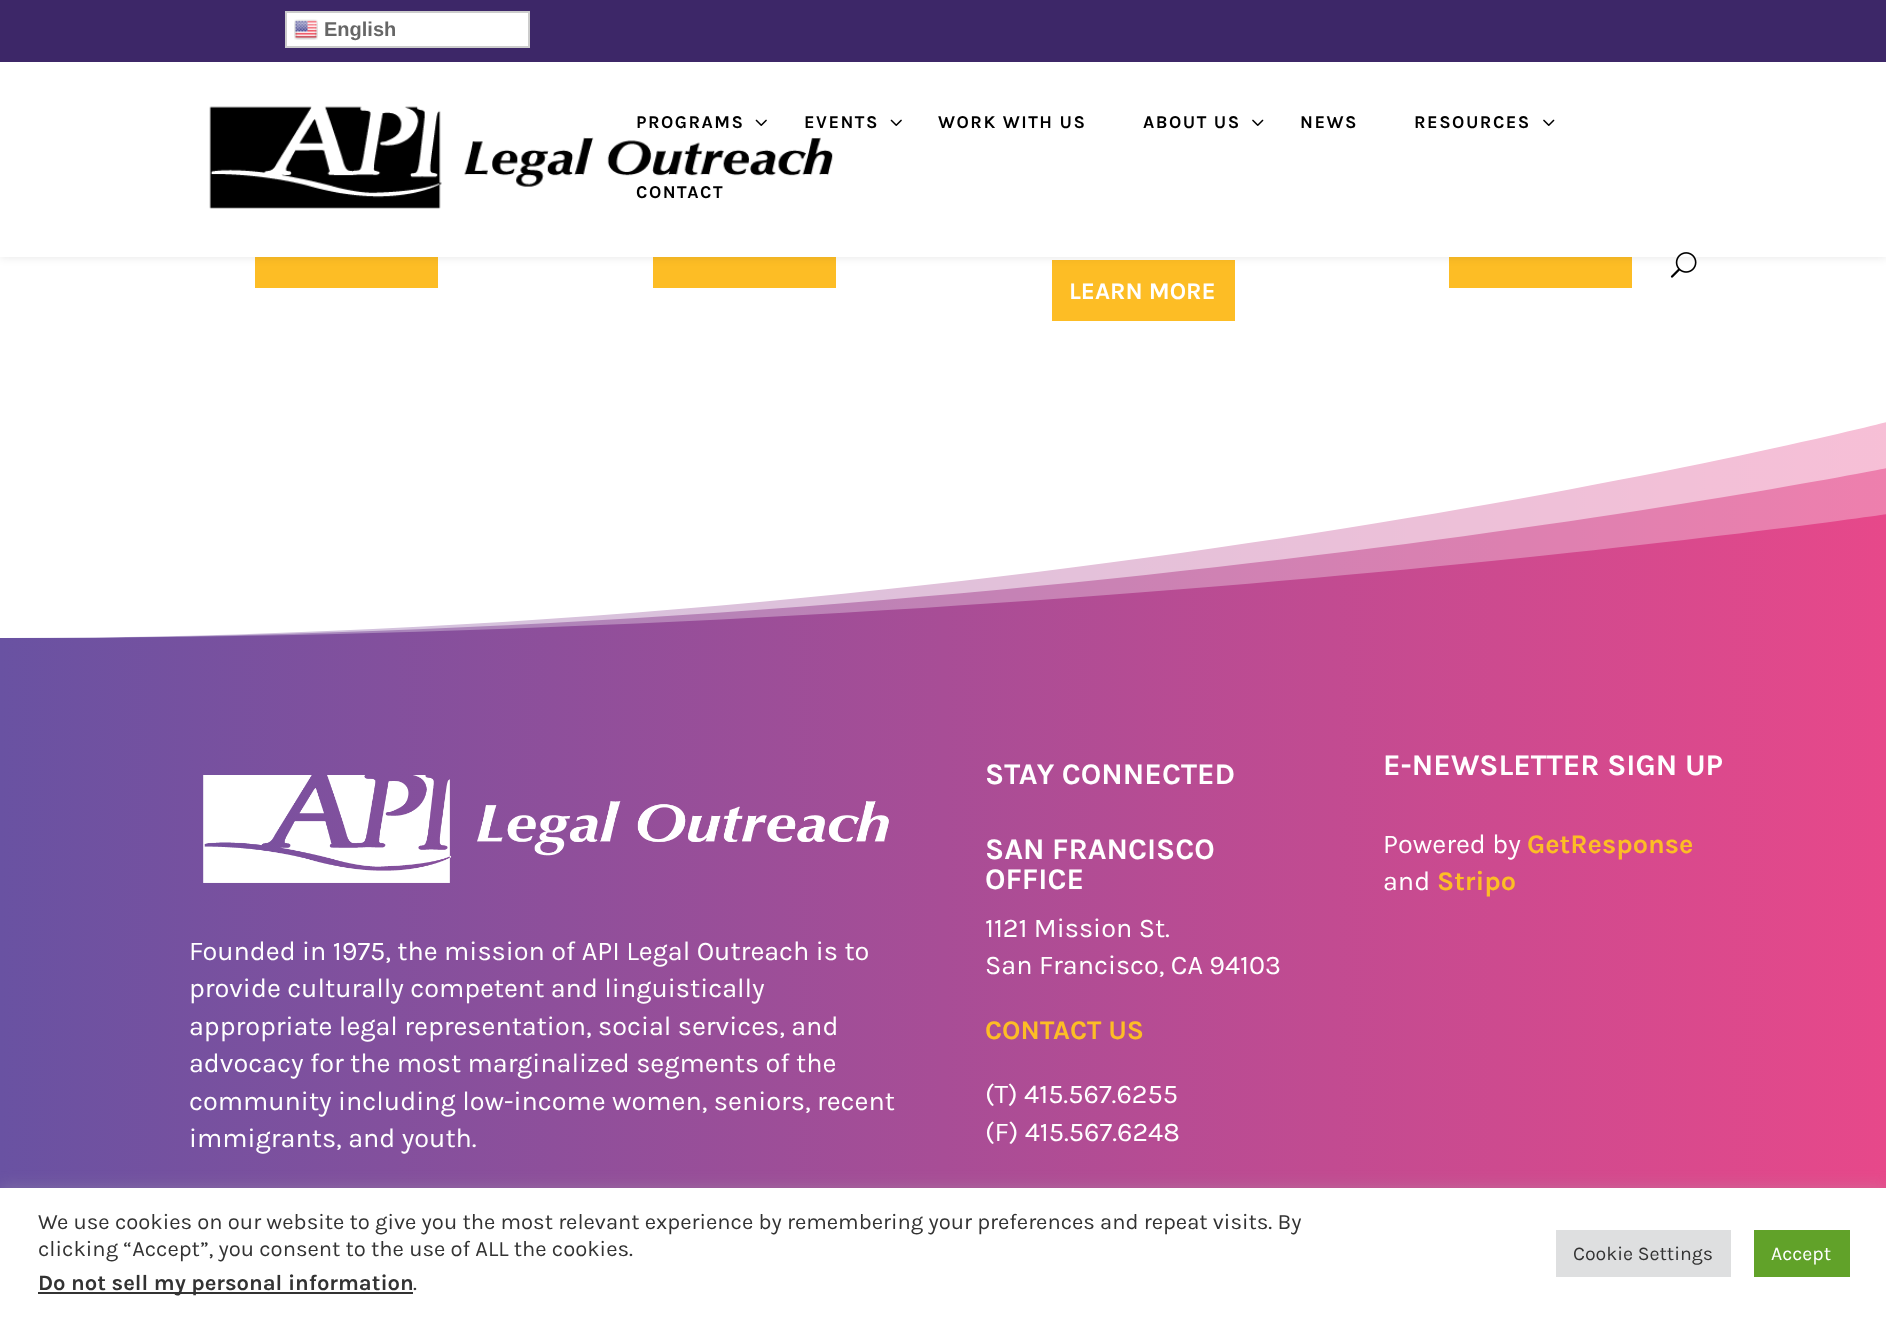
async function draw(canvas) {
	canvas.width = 1886;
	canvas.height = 1318;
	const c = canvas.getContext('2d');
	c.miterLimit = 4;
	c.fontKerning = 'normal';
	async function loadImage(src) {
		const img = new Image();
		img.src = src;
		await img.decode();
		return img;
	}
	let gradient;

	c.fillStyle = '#fff';
	c.fillRect(0, 0, 1886, 1318);
	for (const [x, y, w, h, color] of [
		[255, 257, 183, 31, '#fdbd25'],
		[653, 257, 183, 31, '#fdbd25'],
		[1449, 257, 183, 31, '#fdbd25'],
		[1052, 260, 183, 61, '#fdbd25'],
	]) {
		c.fillStyle = color;
		c.fillRect(x, y, w, h);
	}
	c.fillStyle = '#0000001a';
	c.filter = 'blur(5px)';
	c.beginPath();
	c.rect(0, 62, 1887, 195);
	c.fill();
	c.filter = 'none';
	c.fillStyle = '#3d2768';
	c.fillRect(0, 0, 1886, 62);
	c.fillStyle = '#fff';
	c.beginPath();
	c.rect(286, 12, 243, 35);
	c.fill();
	c.strokeStyle = '#ccc';
	c.lineWidth = 2;
	c.stroke();
	c.drawImage(await loadImage('img1.png'), 294, 19, 24, 21);
	c.font = 'bold 20px Liberation Sans';
	c.fillStyle = '#666';
	c.fillText('English', 324, 36);
	c.fillStyle = '#fff';
	c.fillRect(0, 62, 1886, 195);
	c.drawImage(await loadImage('img2.png'), 209, 106, 624, 103);
	c.letterSpacing = '1.5px';
	c.font = 'bold 18px Karla';
	c.fillStyle = '#000';
	c.fillText('PROGRAMS', 636, 128);
	c.drawImage(await loadImage('img3.png'), 755, 119, 12, 7);
	c.fillText('EVENTS', 804, 128);
	c.drawImage(await loadImage('img3.png'), 890, 119, 12, 7);
	c.fillText('WORK WITH US', 938, 128);
	c.fillText('ABOUT US', 1143, 128);
	c.drawImage(await loadImage('img4.png'), 1252, 119, 12, 7);
	c.fillText('NEWS', 1300, 128);
	c.fillText('RESOURCES', 1414, 128);
	c.drawImage(await loadImage('img4.png'), 1543, 119, 12, 7);
	c.fillText('CONTACT', 636, 198);
	c.drawImage(await loadImage('img5.png'), 1670, 252, 27, 26);
	c.letterSpacing = '0px';
	c.font = 'bold 24px Karla';
	c.fillStyle = '#fff';
	c.fillText('LEARN MORE', 1069, 299);
	gradient = c.createLinearGradient(0, 1046, 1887, 1046);
	gradient.addColorStop(0, '#6952a2');
	gradient.addColorStop(1, '#e7488a');
	c.fillStyle = gradient;
	c.fillRect(0, 422, 1886, 766);
	c.fillStyle = '#ffffff4d';
	c.beginPath();
	c.moveTo(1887, 422);
	c.lineTo(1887, 514);
	c.bezierCurveTo(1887, 514, 1042, 638, 0, 638);
	c.lineTo(0, 422);
	c.closePath();
	c.fill();
	c.fillStyle = '#ffffff80';
	c.beginPath();
	c.moveTo(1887, 422);
	c.lineTo(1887, 468);
	c.bezierCurveTo(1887, 468, 1042, 638, 0, 638);
	c.lineTo(0, 422);
	c.closePath();
	c.fill();
	c.fillStyle = '#fff';
	c.beginPath();
	c.moveTo(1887, 422);
	c.bezierCurveTo(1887, 422, 1042, 638, 0, 638);
	c.lineTo(0, 422);
	c.closePath();
	c.fill();
	c.drawImage(await loadImage('img6.png'), 203, 775, 686, 108);
	c.font = '27px Karla';
	for (const [text, x, y] of [
		['Founded in 1975, the mission of API Legal Outreach is to', 189, 960],
		['provide culturally competent and linguistically', 189, 997],
		['appropriate legal representation, social services, and', 189, 1035],
		['advocacy for the most marginalized segments of the', 189, 1072],
		['community including low-income women, seniors, recent', 189, 1110],
		['immigrants, and youth.', 189, 1147],
	]) {
		c.fillText(text, x, y);
	}
	c.font = 'bold 30px Karla';
	for (const [text, x, y] of [
		['STAY CONNECTED', 985, 784],
		['SAN FRANCISCO', 985, 859],
		['OFFICE', 985, 889],
	]) {
		c.fillText(text, x, y);
	}
	c.font = '27px Karla';
	c.fillText('1121 Mission St.', 985, 937);
	c.fillText('San Francisco, CA 94103', 985, 974);
	c.font = 'bold 27px Karla';
	c.fillStyle = '#fdbd25';
	c.fillText('CONTACT US', 985, 1039);
	c.font = '27px Karla';
	c.fillStyle = '#fff';
	c.fillText('(T) 415.567.6255', 985, 1103);
	c.fillText('(F) 415.567.6248', 985, 1141);
	c.font = 'bold 30px Karla';
	c.fillText('E-NEWSLETTER SIGN UP', 1383, 775);
	c.font = '27px Karla';
	c.fillText('Powered by', 1383, 853);
	c.font = 'bold 27px Karla';
	c.fillStyle = '#fdbd25';
	c.fillText('GetResponse', 1527, 853);
	c.font = '27px Karla';
	c.fillStyle = '#fff';
	c.fillText('and', 1383, 890);
	c.font = 'bold 27px Karla';
	c.fillStyle = '#fdbd25';
	c.fillText('Stripo', 1437, 890);
	c.fillStyle = '#acabab4d';
	c.filter = 'blur(7.5px)';
	c.beginPath();
	c.rect(0, 1187, 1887, 130);
	c.fill();
	c.filter = 'none';
	c.fillStyle = '#fff';
	c.fillRect(0, 1188, 1886, 130);
	c.font = '22px Karla';
	c.fillStyle = '#333';
	c.fillText('We use cookies on our website to give you the most relevant experience by remembering your preferences and repeat visits. By', 38, 1229);
	c.fillText('clicking “Accept”, you consent to the use of ALL the cookies.', 38, 1256);
	c.fillRect(38, 1292, 375, 2);
	c.font = 'bold 22px Karla';
	c.fillText('Do not sell my personal information', 38, 1290);
	c.font = '22px Karla';
	c.fillText('.', 413, 1290);
	c.fillStyle = '#dedfe0';
	c.fillRect(1556, 1230, 175, 47);
	c.font = '19.5px Karla';
	c.fillStyle = '#333';
	c.fillText('Cookie Settings', 1573, 1260);
	c.fillStyle = '#61a229';
	c.fillRect(1754, 1230, 96, 47);
	c.fillStyle = '#fff';
	c.fillText('Accept', 1771, 1260);
}

draw(document.querySelector('canvas'));
